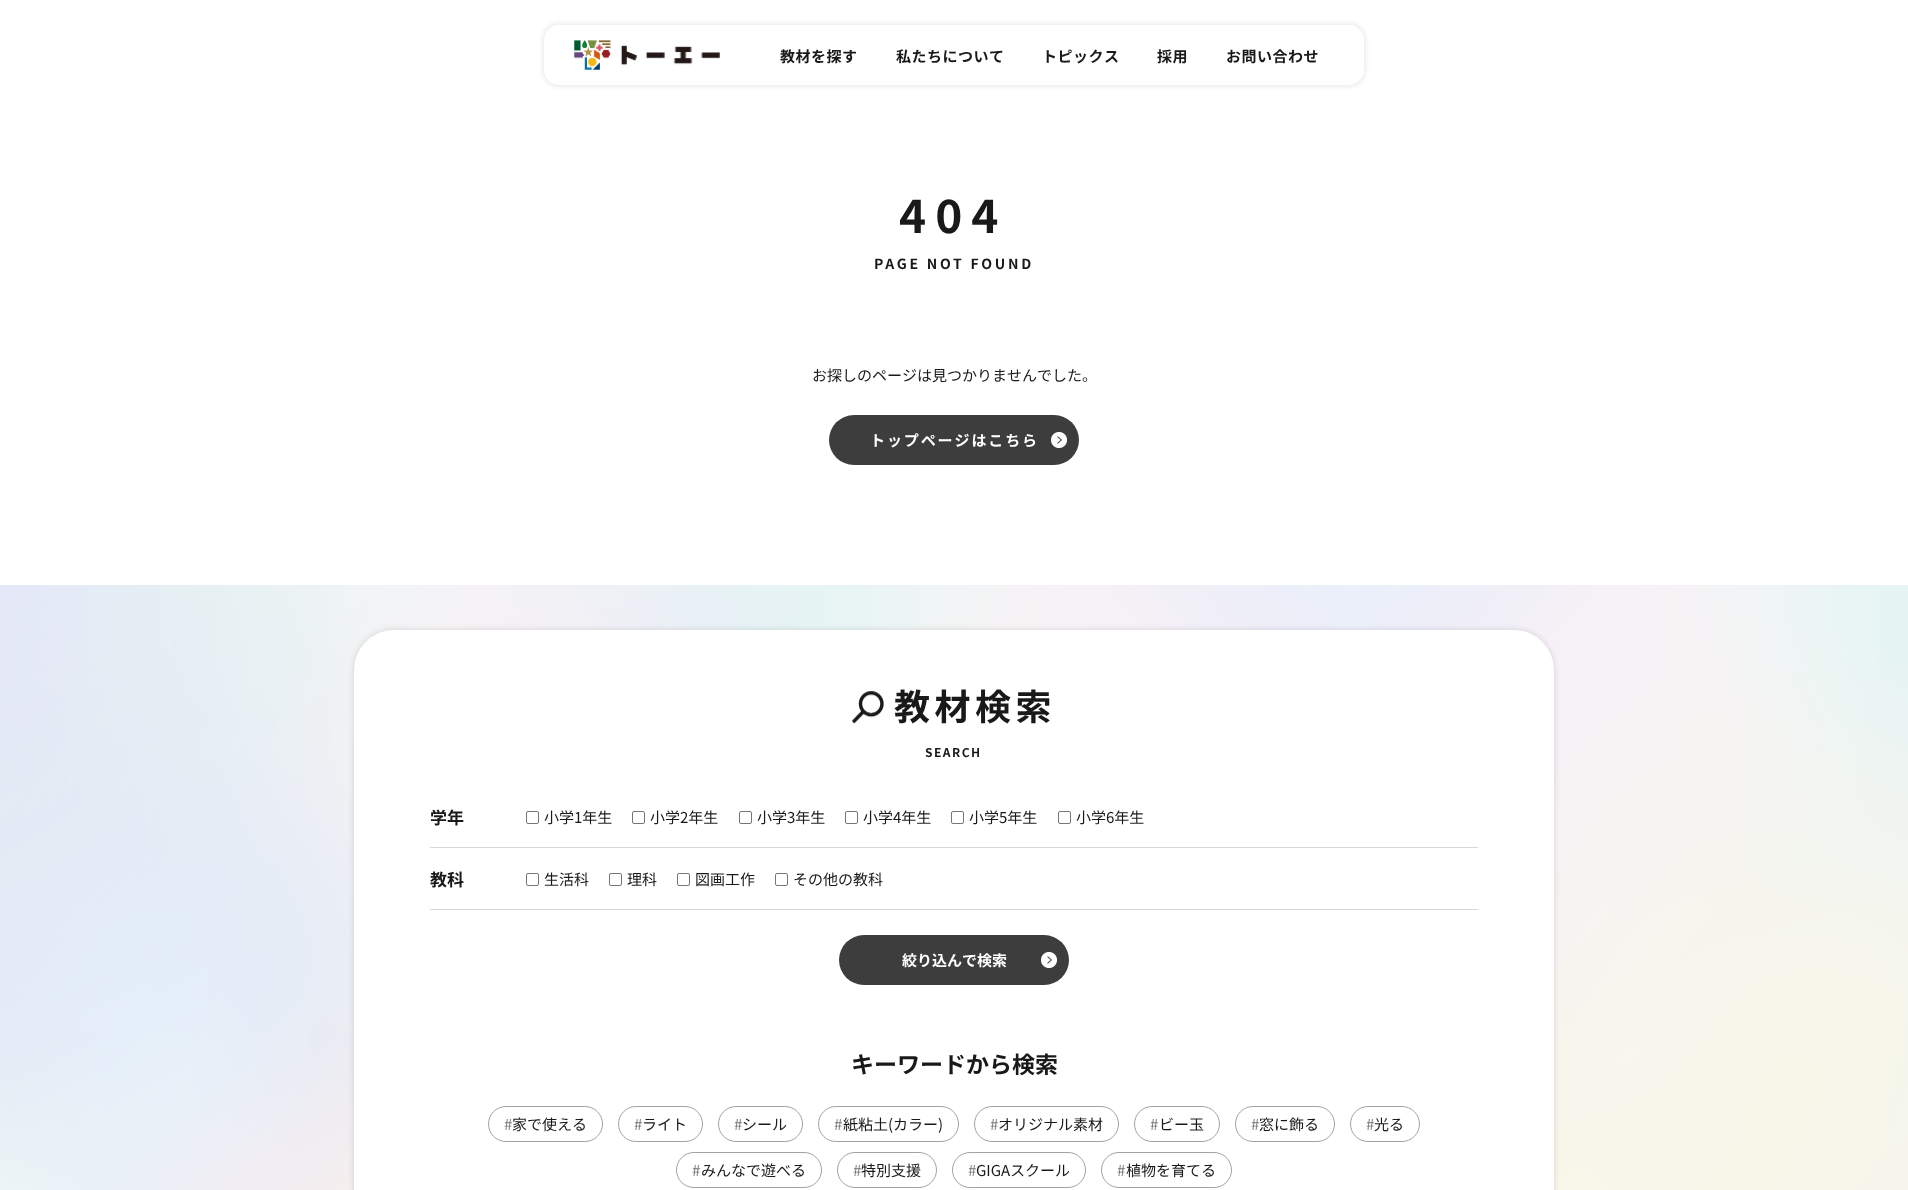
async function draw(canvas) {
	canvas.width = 1908;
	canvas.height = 1190;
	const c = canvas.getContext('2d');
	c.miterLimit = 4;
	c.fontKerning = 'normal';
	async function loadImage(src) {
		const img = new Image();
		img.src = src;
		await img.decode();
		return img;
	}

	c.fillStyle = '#fff';
	c.fillRect(0, 0, 1908, 1190);
	c.fillStyle = '#23181514';
	c.filter = 'blur(2px)';
	c.beginPath();
	c.roundRect(542, 23, 824, 64, 17);
	c.fill();
	c.filter = 'none';
	c.fillStyle = '#fff';
	c.beginPath();
	c.roundRect(544, 25, 820, 60, 15);
	c.fill();
	c.drawImage(await loadImage('img1.png'), 574, 40, 146, 30);
	c.letterSpacing = '0.5px';
	c.font = 'bold 15px Noto Sans JP';
	c.fillStyle = '#191919';
	for (const [text, x, y] of [
		['教材を探す', 780, 62],
		['私たちについて', 896, 62],
		['トピックス', 1042, 62],
		['採用', 1157, 62],
		['お問い合わせ', 1226, 62],
	]) {
		c.fillText(text, x, y);
	}
	c.letterSpacing = '9px';
	c.font = 'bold 46px Noto Sans JP';
	c.fillText('404', 899, 233);
	c.letterSpacing = '2.75px';
	c.font = 'bold 14px Noto Sans JP';
	c.fillText('PAGE NOT FOUND', 874, 269);
	c.letterSpacing = '0px';
	c.font = '15px Noto Sans JP';
	c.fillText('お探しのページは見つかりませんでした。', 812, 381);
	c.fillStyle = '#3d3d3d';
	c.beginPath();
	c.roundRect(829, 415, 250, 50, 25);
	c.fill();
	c.letterSpacing = '1.9px';
	c.font = 'bold 15px Noto Sans JP';
	c.fillStyle = '#fff';
	c.fillText('トップページはこちら', 870, 446);
	c.drawImage(await loadImage('img2.png'), 1051, 432, 16, 16);
	c.drawImage(await loadImage('img3.png'), 0, 585, 1908, 605);
	c.fillStyle = '#23181514';
	c.filter = 'blur(2px)';
	c.beginPath();
	c.roundRect(352, 628, 1204, 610, 42);
	c.fill();
	c.filter = 'none';
	c.fillStyle = '#fff';
	c.beginPath();
	c.roundRect(354, 630, 1200, 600, 40);
	c.fill();
	c.drawImage(await loadImage('img4.png'), 852, 691, 32, 33);
	c.letterSpacing = '4.5px';
	c.font = 'bold 36px Noto Sans JP';
	c.fillStyle = '#191919';
	c.fillText('教材検索', 894, 720);
	c.letterSpacing = '1.5px';
	c.font = 'bold 12px Noto Sans JP';
	c.fillText('SEARCH', 925, 757);
	c.fillStyle = '#d7d7d7';
	c.fillRect(430, 847, 1048, 1);
	c.letterSpacing = '0px';
	c.font = 'bold 17px Noto Sans JP';
	c.fillStyle = '#191919';
	c.fillText('学年', 430, 824);
	c.beginPath();
	c.roundRect(526.5, 811.5, 12, 12, 1.5);
	c.strokeStyle = '#767676';
	c.stroke();
	c.font = '15px Noto Sans JP';
	c.fillText('小学1年生', 544, 823);
	c.beginPath();
	c.roundRect(632.5, 811.5, 12, 12, 1.5);
	c.stroke();
	c.fillText('小学2年生', 650, 823);
	c.beginPath();
	c.roundRect(739.5, 811.5, 12, 12, 1.5);
	c.stroke();
	c.fillText('小学3年生', 757, 823);
	c.beginPath();
	c.roundRect(845.5, 811.5, 12, 12, 1.5);
	c.stroke();
	c.fillText('小学4年生', 863, 823);
	c.beginPath();
	c.roundRect(951.5, 811.5, 12, 12, 1.5);
	c.stroke();
	c.fillText('小学5年生', 969, 823);
	c.beginPath();
	c.roundRect(1058.5, 811.5, 12, 12, 1.5);
	c.stroke();
	c.fillText('小学6年生', 1076, 823);
	c.fillStyle = '#d7d7d7';
	c.fillRect(430, 909, 1048, 1);
	c.font = 'bold 17px Noto Sans JP';
	c.fillStyle = '#191919';
	c.fillText('教科', 430, 886);
	c.beginPath();
	c.roundRect(526.5, 873.5, 12, 12, 1.5);
	c.stroke();
	c.font = '15px Noto Sans JP';
	c.fillText('生活科', 544, 885);
	c.beginPath();
	c.roundRect(609.5, 873.5, 12, 12, 1.5);
	c.stroke();
	c.fillText('理科', 627, 885);
	c.beginPath();
	c.roundRect(677.5, 873.5, 12, 12, 1.5);
	c.stroke();
	c.fillText('図画工作', 695, 885);
	c.beginPath();
	c.roundRect(775.5, 873.5, 12, 12, 1.5);
	c.stroke();
	c.fillText('その他の教科', 793, 885);
	c.fillStyle = '#3d3d3d';
	c.beginPath();
	c.roundRect(839, 935, 230, 50, 25);
	c.fill();
	c.font = 'bold 15px Noto Sans JP';
	c.fillStyle = '#fff';
	c.fillText('絞り込んで検索', 902, 966);
	c.drawImage(await loadImage('img2.png'), 1041, 952, 16, 16);
	c.font = 'bold 23px Noto Sans JP';
	c.fillStyle = '#191919';
	c.fillText('キーワードから検索', 851, 1073);
	c.beginPath();
	c.roundRect(488.5, 1106.5, 114, 35, 17.5);
	c.strokeStyle = '#a3a2a2';
	c.stroke();
	c.font = '15px Noto Sans JP';
	c.fillStyle = '#757575';
	c.fillText('#', 504, 1130);
	c.fillStyle = '#191919';
	c.fillText('家で使える', 512, 1130);
	c.beginPath();
	c.roundRect(618.5, 1106.5, 84, 35, 17.5);
	c.stroke();
	c.fillStyle = '#757575';
	c.fillText('#', 634, 1130);
	c.fillStyle = '#191919';
	c.fillText('ライト', 642, 1130);
	c.beginPath();
	c.roundRect(718.5, 1106.5, 84, 35, 17.5);
	c.stroke();
	c.fillStyle = '#757575';
	c.fillText('#', 734, 1130);
	c.fillStyle = '#191919';
	c.fillText('シール', 742, 1130);
	c.beginPath();
	c.roundRect(818.5, 1106.5, 140, 35, 17.5);
	c.stroke();
	c.fillStyle = '#757575';
	c.fillText('#', 834, 1130);
	c.fillStyle = '#191919';
	c.fillText('紙粘土(カラー)', 843, 1130);
	c.beginPath();
	c.roundRect(974.5, 1106.5, 144, 35, 17.5);
	c.stroke();
	c.fillStyle = '#757575';
	c.fillText('#', 990, 1130);
	c.fillStyle = '#191919';
	c.fillText('オリジナル素材', 998, 1130);
	c.beginPath();
	c.roundRect(1134.5, 1106.5, 85, 35, 17.5);
	c.stroke();
	c.fillStyle = '#757575';
	c.fillText('#', 1150, 1130);
	c.fillStyle = '#191919';
	c.fillText('ビー玉', 1159, 1130);
	c.beginPath();
	c.roundRect(1235.5, 1106.5, 99, 35, 17.5);
	c.stroke();
	c.fillStyle = '#757575';
	c.fillText('#', 1251, 1130);
	c.fillStyle = '#191919';
	c.fillText('窓に飾る', 1259, 1130);
	c.beginPath();
	c.roundRect(1350.5, 1106.5, 69, 35, 17.5);
	c.stroke();
	c.fillStyle = '#757575';
	c.fillText('#', 1366, 1130);
	c.fillStyle = '#191919';
	c.fillText('光る', 1374, 1130);
	c.beginPath();
	c.roundRect(676.5, 1152.5, 145, 35, 17.5);
	c.stroke();
	c.fillStyle = '#757575';
	c.fillText('#', 692, 1176);
	c.fillStyle = '#191919';
	c.fillText('みんなで遊べる', 701, 1176);
	c.beginPath();
	c.roundRect(837.5, 1152.5, 99, 35, 17.5);
	c.stroke();
	c.fillStyle = '#757575';
	c.fillText('#', 853, 1176);
	c.fillStyle = '#191919';
	c.fillText('特別支援', 861, 1176);
	c.beginPath();
	c.roundRect(952.5, 1152.5, 133, 35, 17.5);
	c.stroke();
	c.fillStyle = '#757575';
	c.fillText('#', 968, 1176);
	c.fillStyle = '#191919';
	c.fillText('GIGAスクール', 976, 1176);
	c.beginPath();
	c.roundRect(1101.5, 1152.5, 130, 35, 17.5);
	c.stroke();
	c.fillStyle = '#757575';
	c.fillText('#', 1117, 1176);
	c.fillStyle = '#191919';
	c.fillText('植物を育てる', 1126, 1176);
}

draw(document.querySelector('canvas'));
